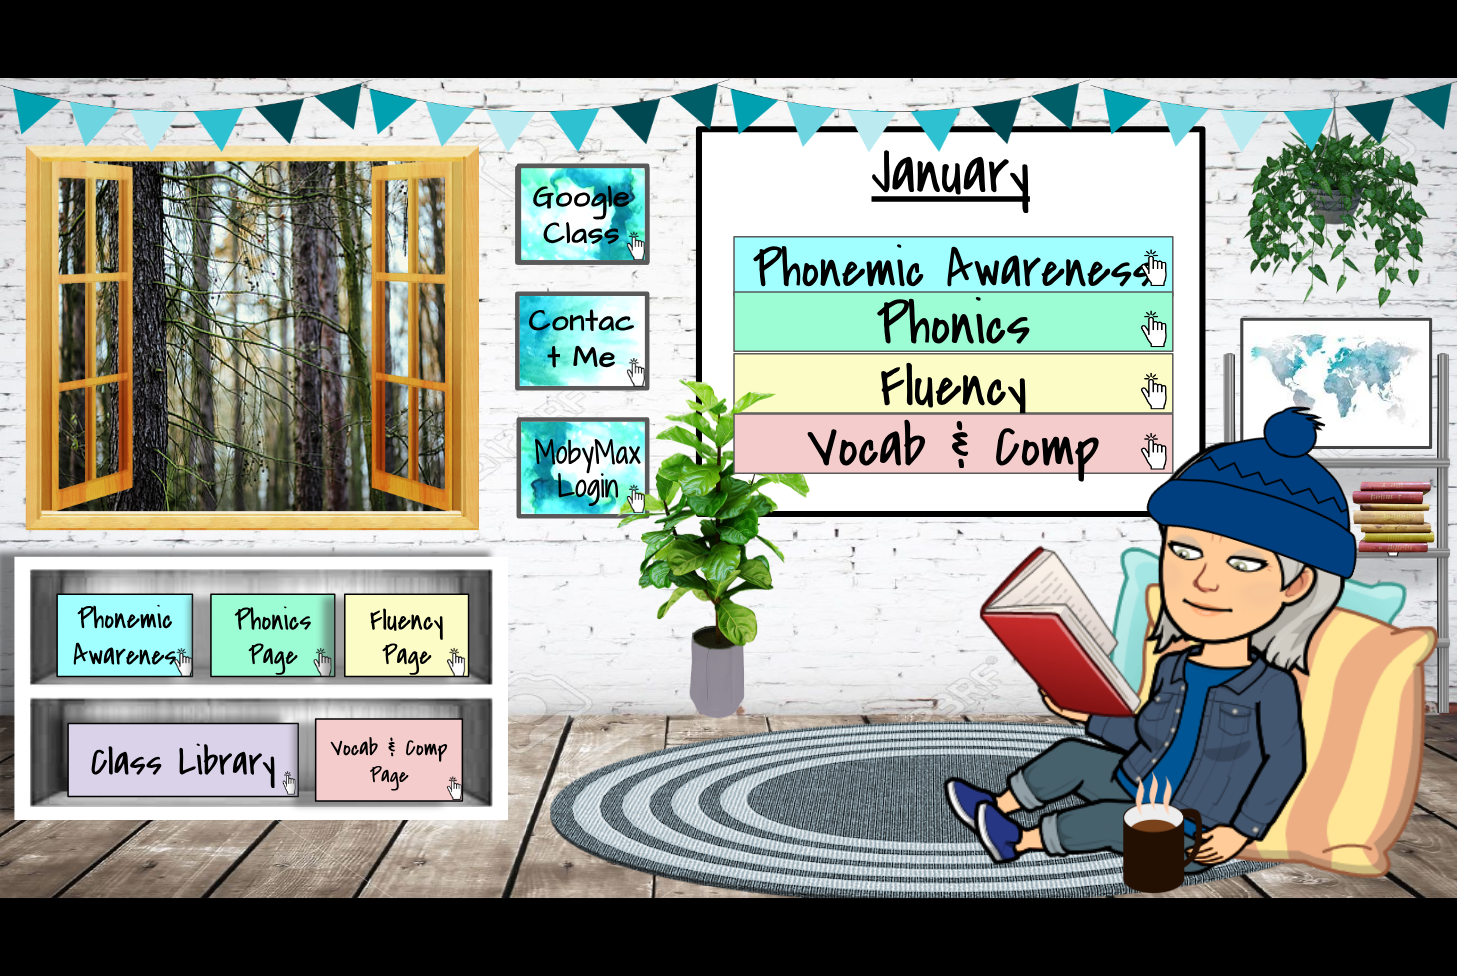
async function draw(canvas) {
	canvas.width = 1457;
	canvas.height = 976;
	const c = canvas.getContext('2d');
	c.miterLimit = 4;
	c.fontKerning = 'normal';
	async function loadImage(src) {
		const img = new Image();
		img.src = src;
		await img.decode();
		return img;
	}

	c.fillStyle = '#000';
	c.fillRect(0, 0, 1457, 976);
	c.drawImage(await loadImage('img1.png'), 0, 78, 1457, 821);
}

draw(document.querySelector('canvas'));
